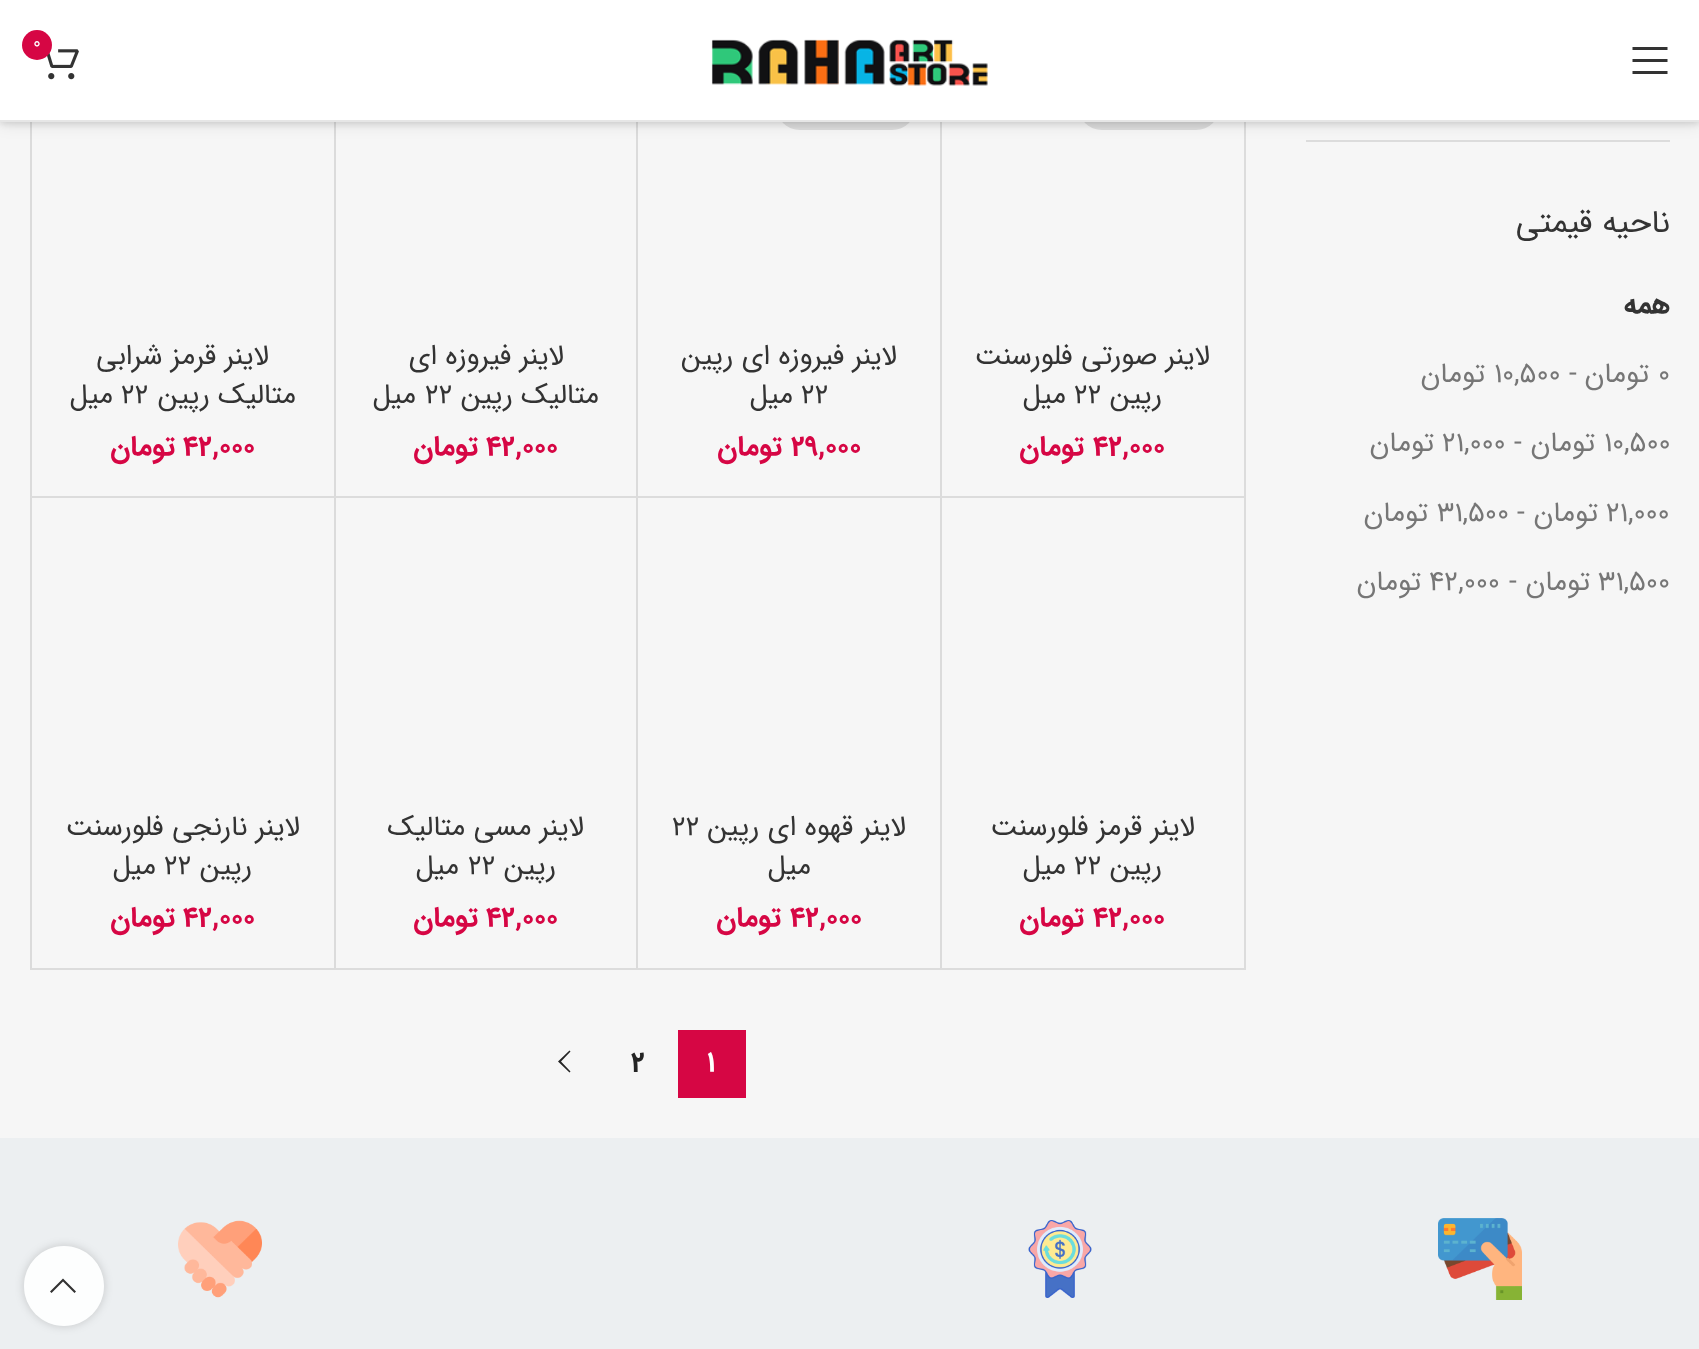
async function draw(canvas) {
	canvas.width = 1699;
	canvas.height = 1349;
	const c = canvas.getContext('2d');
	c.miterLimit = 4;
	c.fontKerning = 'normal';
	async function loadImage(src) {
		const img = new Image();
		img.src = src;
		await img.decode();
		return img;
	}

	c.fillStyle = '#f6f6f6';
	c.fillRect(0, 0, 1699, 1349);
	c.fillStyle = '#dcdcdc';
	c.fillRect(1244, 122, 2, 848);
	c.beginPath();
	c.moveTo(1244, 498);
	c.lineTo(940, 498);
	c.lineTo(942, 496);
	c.lineTo(1244, 496);
	c.closePath();
	c.fill();
	c.fillStyle = '#0000001c';
	c.beginPath();
	c.moveTo(940, 498);
	c.lineTo(940, 28);
	c.lineTo(942, 28);
	c.lineTo(942, 496);
	c.closePath();
	c.fill();
	c.fillStyle = '#ddd';
	c.beginPath();
	c.roundRect(1078, 52, 142, 78, 24);
	c.fill();
	c.fillStyle = '#dcdcdc';
	c.beginPath();
	c.moveTo(940, 498);
	c.lineTo(636, 498);
	c.lineTo(638, 496);
	c.lineTo(940, 496);
	c.closePath();
	c.fill();
	c.fillStyle = '#0000001c';
	c.beginPath();
	c.moveTo(636, 498);
	c.lineTo(636, 28);
	c.lineTo(638, 28);
	c.lineTo(638, 496);
	c.closePath();
	c.fill();
	c.fillStyle = '#ddd';
	c.beginPath();
	c.roundRect(776, 52, 140, 78, 24);
	c.fill();
	c.fillStyle = '#dcdcdc';
	c.beginPath();
	c.moveTo(636, 498);
	c.lineTo(334, 498);
	c.lineTo(336, 496);
	c.lineTo(636, 496);
	c.closePath();
	c.fill();
	c.fillStyle = '#0000001c';
	c.beginPath();
	c.moveTo(334, 498);
	c.lineTo(334, 28);
	c.lineTo(336, 28);
	c.lineTo(336, 496);
	c.closePath();
	c.fill();
	c.fillStyle = '#dcdcdc';
	c.beginPath();
	c.moveTo(334, 498);
	c.lineTo(30, 498);
	c.lineTo(32, 496);
	c.lineTo(334, 496);
	c.closePath();
	c.fill();
	c.fillStyle = '#0000001c';
	c.beginPath();
	c.moveTo(30, 498);
	c.lineTo(30, 28);
	c.lineTo(32, 28);
	c.lineTo(32, 496);
	c.closePath();
	c.fill();
	c.fillStyle = '#0000001a';
	c.filter = 'blur(3px)';
	c.beginPath();
	c.rect(0, 2, 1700, 122);
	c.fill();
	c.filter = 'none';
	c.fillStyle = '#dcdcdc';
	c.fillRect(1306, 140, 364, 2);
	c.fillStyle = '#0000001a';
	c.filter = 'blur(8px)';
	c.beginPath();
	c.rect(0, 2, 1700, 122);
	c.fill();
	c.filter = 'none';
	c.fillStyle = '#fff';
	c.fillRect(0, 0, 1699, 120);
	c.fillStyle = '#e6e6e6';
	c.fillRect(0, 120, 1699, 2);
	c.drawImage(await loadImage('img1.png'), 711, 39, 277, 47);
	c.drawImage(await loadImage('img2.png'), 47, 49, 32, 31);
	c.fillStyle = '#d60644';
	c.beginPath();
	c.arc(37, 45, 15, 0, 2 * Math.PI);
	c.fill();
	c.font = '18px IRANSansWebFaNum';
	c.fillStyle = '#fff';
	c.fillText('0', 33, 48);
	c.fillStyle = '#333';
	c.beginPath();
	c.moveTo(1632.5, 50);
	c.lineTo(1667.5, 50);
	c.lineTo(1667.5, 47);
	c.lineTo(1632.5, 47);
	c.closePath();
	c.moveTo(1632.5, 62);
	c.lineTo(1667.5, 62);
	c.lineTo(1667.5, 59);
	c.lineTo(1632.5, 59);
	c.closePath();
	c.moveTo(1632.5, 74);
	c.lineTo(1667.5, 74);
	c.lineTo(1667.5, 71);
	c.lineTo(1632.5, 71);
	c.closePath();
	c.fill();
	c.direction = 'rtl';
	c.font = '32px IRANSansWebFaNum';
	c.fillText('ناحیه قیمتی', 1670, 232);
	c.font = 'bold 28px IRANSansWebFaNum';
	c.fillText('همه', 1670, 313);
	c.direction = 'ltr';
	c.font = '28px IRANSansWebFaNum';
	c.fillStyle = '#767676';
	c.fillText('0', 1658, 382);
	c.direction = 'rtl';
	c.fillText('تومان', 1649, 382);
	c.direction = 'ltr';
	c.fillText('-', 1569, 382);
	c.fillText('10,500', 1494, 382);
	c.direction = 'rtl';
	c.fillText('تومان', 1485, 382);
	c.direction = 'ltr';
	c.fillText('10,500', 1604, 451);
	c.direction = 'rtl';
	c.fillText('تومان', 1595, 451);
	c.direction = 'ltr';
	c.fillText('-', 1514, 451);
	c.fillText('21,000', 1442, 451);
	c.direction = 'rtl';
	c.fillText('تومان', 1434, 451);
	c.direction = 'ltr';
	c.fillText('21,000', 1606, 521);
	c.direction = 'rtl';
	c.fillText('تومان', 1598, 521);
	c.direction = 'ltr';
	c.fillText('-', 1517, 521);
	c.fillText('31,500', 1437, 521);
	c.direction = 'rtl';
	c.fillText('تومان', 1428, 521);
	c.direction = 'ltr';
	c.fillText('31,500', 1598, 590);
	c.direction = 'rtl';
	c.fillText('تومان', 1590, 590);
	c.direction = 'ltr';
	c.fillText('-', 1509, 590);
	c.fillText('42,000', 1429, 590);
	c.direction = 'rtl';
	c.fillText('تومان', 1421, 590);
	c.fillStyle = '#333';
	c.fillText('لاینر صورتی فلورسنت', 1210, 364);
	c.fillText('رپین', 1162, 403);
	c.direction = 'ltr';
	c.fillText('22', 1074, 403);
	c.direction = 'rtl';
	c.fillText('میل', 1066, 403);
	c.direction = 'ltr';
	c.font = 'bold 28px IRANSansWebFaNum';
	c.fillStyle = '#d60644';
	c.fillText('42,000', 1093, 455);
	c.direction = 'rtl';
	c.fillText('تومان', 1084, 455);
	c.font = '28px IRANSansWebFaNum';
	c.fillStyle = '#333';
	c.fillText('لاینر فیروزه ای رپین', 897, 364);
	c.direction = 'ltr';
	c.fillText('22', 801, 403);
	c.direction = 'rtl';
	c.fillText('میل', 793, 403);
	c.direction = 'ltr';
	c.font = 'bold 28px IRANSansWebFaNum';
	c.fillStyle = '#d60644';
	c.fillText('29,000', 791, 455);
	c.direction = 'rtl';
	c.fillText('تومان', 782, 455);
	c.font = '28px IRANSansWebFaNum';
	c.fillStyle = '#333';
	c.fillText('لاینر فیروزه ای', 564, 364);
	c.fillText('متالیک رپین', 599, 403);
	c.direction = 'ltr';
	c.fillText('22', 425, 403);
	c.direction = 'rtl';
	c.fillText('میل', 416, 403);
	c.direction = 'ltr';
	c.font = 'bold 28px IRANSansWebFaNum';
	c.fillStyle = '#d60644';
	c.fillText('42,000', 486, 455);
	c.direction = 'rtl';
	c.fillText('تومان', 478, 455);
	c.font = '28px IRANSansWebFaNum';
	c.fillStyle = '#333';
	c.fillText('لاینر قرمز شرابی', 269, 364);
	c.fillText('متالیک رپین', 296, 403);
	c.direction = 'ltr';
	c.fillText('22', 121, 403);
	c.direction = 'rtl';
	c.fillText('میل', 113, 403);
	c.direction = 'ltr';
	c.font = 'bold 28px IRANSansWebFaNum';
	c.fillStyle = '#d60644';
	c.fillText('42,000', 183, 455);
	c.direction = 'rtl';
	c.fillText('تومان', 175, 455);
	c.fillStyle = '#dcdcdc';
	c.beginPath();
	c.moveTo(1244, 970);
	c.lineTo(940, 970);
	c.lineTo(942, 968);
	c.lineTo(1244, 968);
	c.closePath();
	c.fill();
	c.fillStyle = '#0000001c';
	c.beginPath();
	c.moveTo(940, 970);
	c.lineTo(940, 498);
	c.lineTo(942, 498);
	c.lineTo(942, 968);
	c.closePath();
	c.fill();
	c.font = '28px IRANSansWebFaNum';
	c.fillStyle = '#333';
	c.fillText('لاینر قرمز فلورسنت', 1195, 835);
	c.fillText('رپین', 1162, 874);
	c.direction = 'ltr';
	c.fillText('22', 1074, 874);
	c.direction = 'rtl';
	c.fillText('میل', 1066, 874);
	c.direction = 'ltr';
	c.font = 'bold 28px IRANSansWebFaNum';
	c.fillStyle = '#d60644';
	c.fillText('42,000', 1093, 926);
	c.direction = 'rtl';
	c.fillText('تومان', 1084, 926);
	c.fillStyle = '#dcdcdc';
	c.beginPath();
	c.moveTo(940, 970);
	c.lineTo(636, 970);
	c.lineTo(638, 968);
	c.lineTo(940, 968);
	c.closePath();
	c.fill();
	c.fillStyle = '#0000001c';
	c.beginPath();
	c.moveTo(636, 970);
	c.lineTo(636, 498);
	c.lineTo(638, 498);
	c.lineTo(638, 968);
	c.closePath();
	c.fill();
	c.font = '28px IRANSansWebFaNum';
	c.fillStyle = '#333';
	c.fillText('لاینر قهوه ای رپین', 906, 835);
	c.direction = 'ltr';
	c.fillText('22', 672, 835);
	c.direction = 'rtl';
	c.fillText('میل', 811, 874);
	c.direction = 'ltr';
	c.font = 'bold 28px IRANSansWebFaNum';
	c.fillStyle = '#d60644';
	c.fillText('42,000', 790, 926);
	c.direction = 'rtl';
	c.fillText('تومان', 781, 926);
	c.fillStyle = '#dcdcdc';
	c.beginPath();
	c.moveTo(636, 970);
	c.lineTo(334, 970);
	c.lineTo(336, 968);
	c.lineTo(636, 968);
	c.closePath();
	c.fill();
	c.fillStyle = '#0000001c';
	c.beginPath();
	c.moveTo(334, 970);
	c.lineTo(334, 498);
	c.lineTo(336, 498);
	c.lineTo(336, 968);
	c.closePath();
	c.fill();
	c.font = '28px IRANSansWebFaNum';
	c.fillStyle = '#333';
	c.fillText('لاینر مسی متالیک', 584, 835);
	c.fillText('رپین', 556, 874);
	c.direction = 'ltr';
	c.fillText('22', 468, 874);
	c.direction = 'rtl';
	c.fillText('میل', 459, 874);
	c.direction = 'ltr';
	c.font = 'bold 28px IRANSansWebFaNum';
	c.fillStyle = '#d60644';
	c.fillText('42,000', 486, 926);
	c.direction = 'rtl';
	c.fillText('تومان', 478, 926);
	c.fillStyle = '#dcdcdc';
	c.beginPath();
	c.moveTo(334, 970);
	c.lineTo(30, 970);
	c.lineTo(32, 968);
	c.lineTo(334, 968);
	c.closePath();
	c.fill();
	c.fillStyle = '#0000001c';
	c.beginPath();
	c.moveTo(30, 970);
	c.lineTo(30, 498);
	c.lineTo(32, 498);
	c.lineTo(32, 968);
	c.closePath();
	c.fill();
	c.font = '28px IRANSansWebFaNum';
	c.fillStyle = '#333';
	c.fillText('لاینر نارنجی فلورسنت', 300, 835);
	c.fillText('رپین', 252, 874);
	c.direction = 'ltr';
	c.fillText('22', 164, 874);
	c.direction = 'rtl';
	c.fillText('میل', 156, 874);
	c.direction = 'ltr';
	c.font = 'bold 28px IRANSansWebFaNum';
	c.fillStyle = '#d60644';
	c.fillText('42,000', 183, 926);
	c.direction = 'rtl';
	c.fillText('تومان', 175, 926);
	c.fillRect(678, 1030, 68, 68);
	c.direction = 'ltr';
	c.fillStyle = '#fff';
	c.fillText('1', 707, 1071);
	c.fillStyle = '#242424';
	c.fillText('2', 631, 1071);
	c.beginPath();
	c.moveTo(570.5, 1051.5);
	c.lineTo(569.5, 1050.5);
	c.lineTo(558, 1061.5);
	c.lineTo(569.5, 1072.5);
	c.lineTo(570.5, 1071.5);
	c.lineTo(561, 1061.5);
	c.closePath();
	c.fill();
	c.fillStyle = '#eceff1';
	c.fillRect(0, 1138, 1699, 211);
	c.drawImage(await loadImage('img3.png'), 1438, 1218, 84, 82);
	c.drawImage(await loadImage('img4.png'), 1028, 1220, 64, 78);
	c.drawImage(await loadImage('img5.png'), 178, 1220, 84, 78);
	c.save();
	c.beginPath();
	c.moveTo(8, 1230);
	c.lineTo(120, 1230);
	c.lineTo(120, 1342);
	c.lineTo(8, 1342);
	c.closePath();
	c.moveTo(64, 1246);
	c.bezierCurveTo(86, 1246, 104, 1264, 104, 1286);
	c.bezierCurveTo(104, 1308, 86, 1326, 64, 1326);
	c.bezierCurveTo(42, 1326, 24, 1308, 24, 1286);
	c.bezierCurveTo(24, 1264, 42, 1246, 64, 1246);
	c.closePath();
	c.clip('evenodd');
	c.fillStyle = '#0000002b';
	c.filter = 'blur(5px)';
	c.beginPath();
	c.roundRect(24, 1246, 80, 80, 40);
	c.fill();
	c.filter = 'none';
	c.restore();
	c.fillStyle = '#ffffffe6';
	c.beginPath();
	c.arc(64, 1286, 40, 0, 2 * Math.PI);
	c.fill();
	c.fillStyle = '#333';
	c.beginPath();
	c.moveTo(74.5, 1293);
	c.lineTo(76, 1291.5);
	c.lineTo(63, 1278.5);
	c.lineTo(50, 1291.5);
	c.lineTo(51.5, 1293);
	c.lineTo(63, 1281.5);
	c.closePath();
	c.fill();
}

draw(document.querySelector('canvas'));
